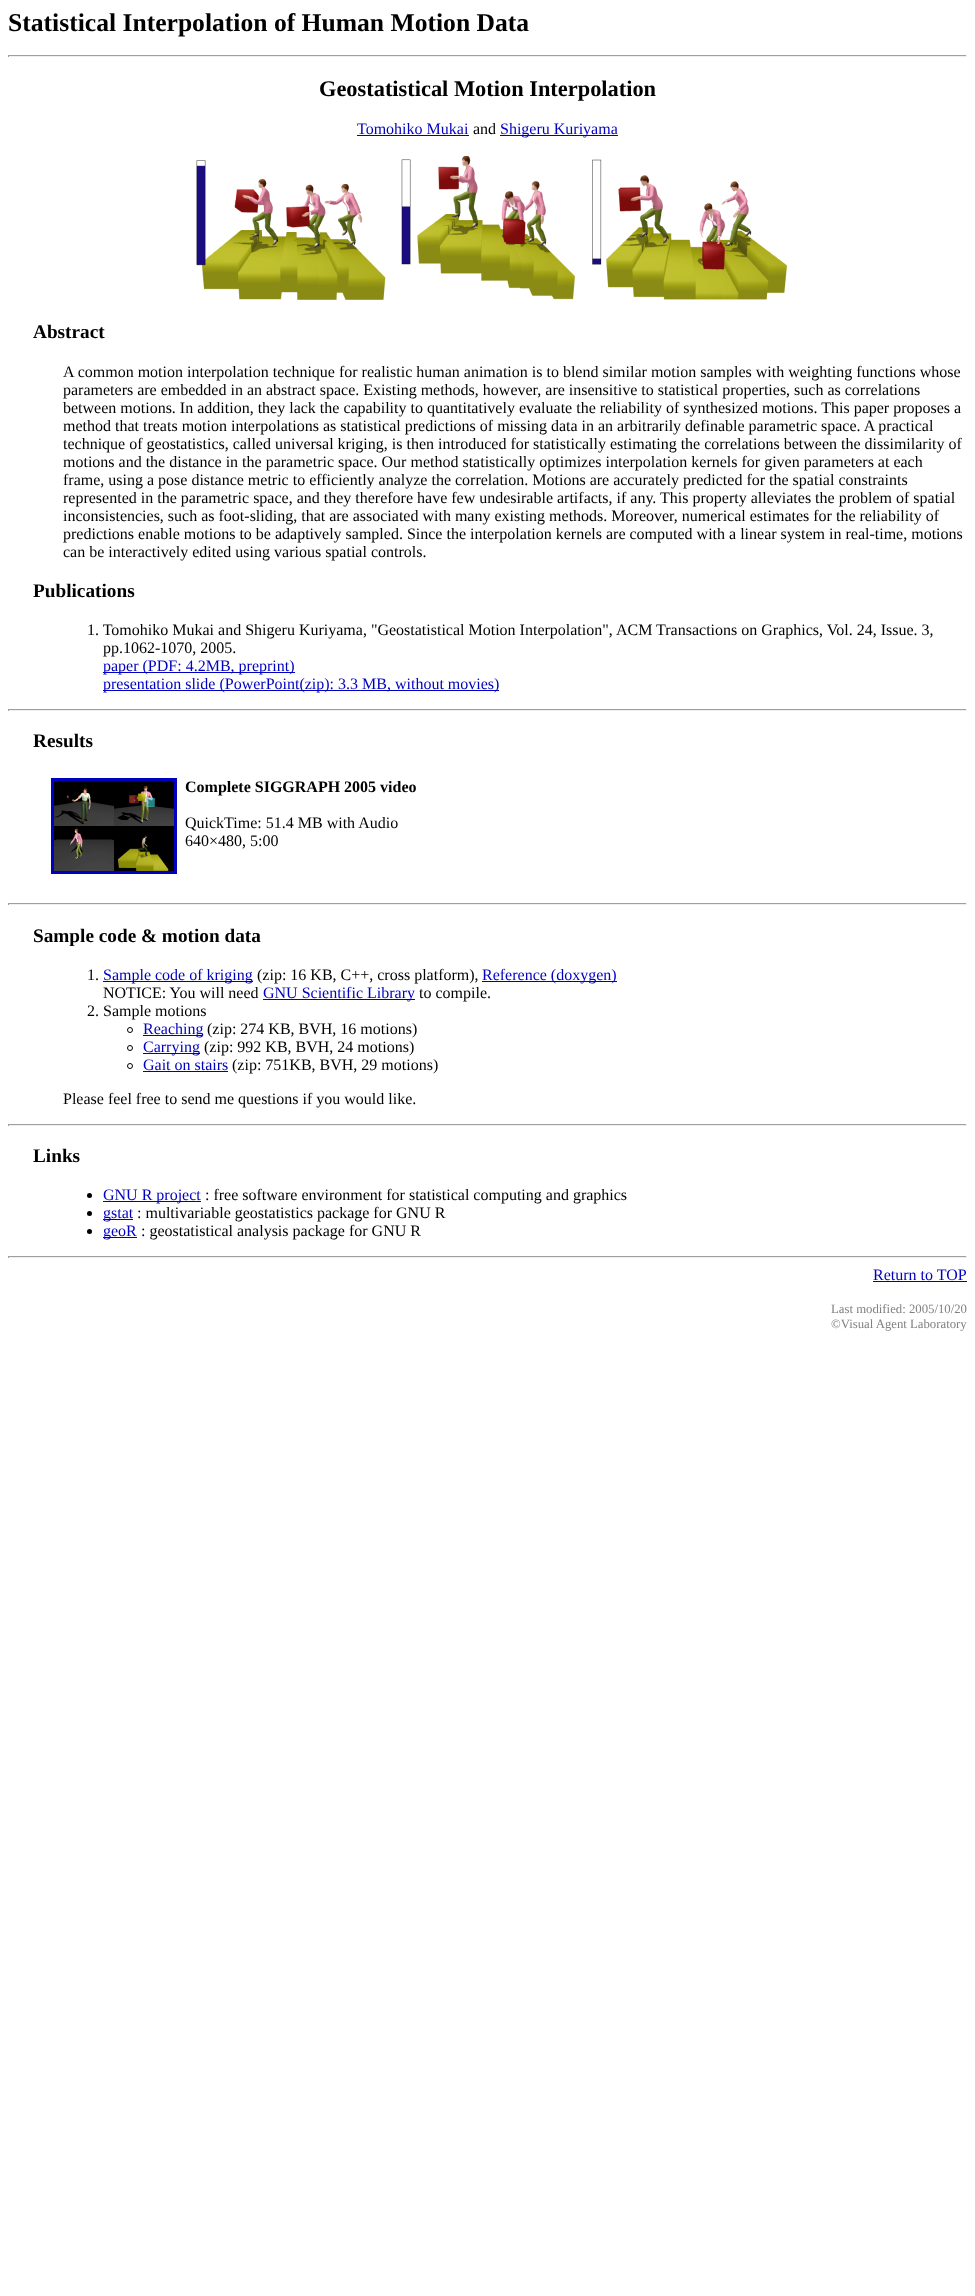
async function draw(canvas) {
	canvas.width = 975;
	canvas.height = 2296;
	const c = canvas.getContext('2d');
	c.miterLimit = 4;
	c.fontKerning = 'normal';
	async function loadImage(src) {
		const img = new Image();
		img.src = src;
		await img.decode();
		return img;
	}

	c.fillStyle = '#fff';
	c.fillRect(0, 0, 975, 2296);
	c.font = 'bold 25.6px Liberation Serif';
	c.fillStyle = '#000';
	c.fillText('Statistical Interpolation of Human Motion Data', 8, 31);
	for (const [x, y, w, h, color] of [
		[8, 55, 959, 1, '#9f9f9f'],
		[966, 55, 1, 2, '#eee'],
		[8, 56, 959, 1, '#eee'],
		[8, 55, 1, 2, '#9f9f9f'],
	]) {
		c.fillStyle = color;
		c.fillRect(x, y, w, h);
	}
	c.font = 'bold 22.4px Liberation Serif';
	c.fillStyle = '#000';
	c.fillText('Geostatistical Motion Interpolation', 319, 96);
	c.font = '16px Liberation Serif';
	c.fillStyle = '#0000c0';
	c.fillText('Tomohiko Mukai', 357, 134);
	c.fillRect(357, 135, 112, 1);
	c.fillStyle = '#000';
	c.fillText('and', 473, 134);
	c.fillStyle = '#0000c0';
	c.fillRect(500, 135, 118, 1);
	c.fillText('Shigeru Kuriyama', 500, 134);
	c.drawImage(await loadImage('img1.png'), 196, 156, 592, 144);
	c.font = 'bold 19.25px Liberation Serif';
	c.fillStyle = '#000';
	c.fillText('Abstract', 33, 338);
	c.font = '16px Liberation Serif';
	for (const [text, x, y] of [
		['A common motion interpolation technique for realistic human animation is to blend similar motion samples with weighting functions whose', 63, 377],
		['parameters are embedded in an abstract space. Existing methods, however, are insensitive to statistical properties, such as correlations', 63, 395],
		['between motions. In addition, they lack the capability to quantitatively evaluate the reliability of synthesized motions. This paper proposes a', 63, 413],
		['method that treats motion interpolations as statistical predictions of missing data in an arbitrarily definable parametric space. A practical', 63, 431],
		['technique of geostatistics, called universal kriging, is then introduced for statistically estimating the correlations between the dissimilarity of', 63, 449],
		['motions and the distance in the parametric space. Our method statistically optimizes interpolation kernels for given parameters at each', 63, 467],
		['frame, using a pose distance metric to efficiently analyze the correlation. Motions are accurately predicted for the spatial constraints', 63, 485],
		['represented in the parametric space, and they therefore have few undesirable artifacts, if any. This property alleviates the problem of spatial', 63, 503],
		['inconsistencies, such as foot-sliding, that are associated with many existing methods. Moreover, numerical estimates for the reliability of', 63, 521],
		['predictions enable motions to be adaptively sampled. Since the interpolation kernels are computed with a linear system in real-time, motions', 63, 539],
		['can be interactively edited using various spatial controls.', 63, 557],
	]) {
		c.fillText(text, x, y);
	}
	c.font = 'bold 19.25px Liberation Serif';
	c.fillText('Publications', 33, 597);
	c.font = '16px Liberation Serif';
	c.fillText('1. Tomohiko Mukai and Shigeru Kuriyama, "Geostatistical Motion Interpolation", ACM Transactions on Graphics, Vol. 24, Issue. 3,', 87, 635);
	c.fillText('pp.1062-1070, 2005.', 103, 653);
	c.fillStyle = '#0000c0';
	c.fillRect(103, 672, 192, 1);
	c.fillText('paper (PDF: 4.2MB, preprint)', 103, 671);
	c.fillRect(103, 690, 396, 1);
	c.fillText('presentation slide (PowerPoint(zip): 3.3 MB, without movies)', 103, 689);
	for (const [x, y, w, h, color] of [
		[8, 709, 959, 1, '#9f9f9f'],
		[966, 709, 1, 2, '#eee'],
		[8, 710, 959, 1, '#eee'],
		[8, 709, 1, 2, '#9f9f9f'],
	]) {
		c.fillStyle = color;
		c.fillRect(x, y, w, h);
	}
	c.font = 'bold 19.25px Liberation Serif';
	c.fillStyle = '#000';
	c.fillText('Results', 33, 747);
	c.strokeStyle = '#0000c0';
	c.lineWidth = 3;
	c.strokeRect(52.5, 779.5, 123, 93);
	c.drawImage(await loadImage('img2.png'), 54, 781, 120, 90);
	c.font = 'bold 16px Liberation Serif';
	c.fillText('Complete SIGGRAPH 2005 video', 185, 792);
	c.font = '16px Liberation Serif';
	c.fillText('QuickTime: 51.4 MB with Audio', 185, 828);
	c.fillText('640×480, 5:00', 185, 846);
	for (const [x, y, w, h, color] of [
		[8, 903, 959, 1, '#9f9f9f'],
		[966, 903, 1, 2, '#eee'],
		[8, 904, 959, 1, '#eee'],
		[8, 903, 1, 2, '#9f9f9f'],
	]) {
		c.fillStyle = color;
		c.fillRect(x, y, w, h);
	}
	c.font = 'bold 19.25px Liberation Serif';
	c.fillStyle = '#000';
	c.fillText('Sample code & motion data', 33, 942);
	c.font = '16px Liberation Serif';
	c.fillText('1.', 87, 980);
	c.fillStyle = '#0000c0';
	c.fillRect(103, 981, 150, 1);
	c.fillText('Sample code of kriging', 103, 980);
	c.fillStyle = '#000';
	c.fillText('(zip: 16 KB, C++, cross platform),', 257, 980);
	c.fillStyle = '#0000c0';
	c.fillRect(482, 981, 135, 1);
	c.fillText('Reference (doxygen)', 482, 980);
	c.fillStyle = '#000';
	c.fillText('NOTICE: You will need', 103, 998);
	c.fillStyle = '#0000c0';
	c.fillRect(263, 999, 152, 1);
	c.fillText('GNU Scientific Library', 263, 998);
	c.fillStyle = '#000';
	c.fillText('to compile.', 419, 998);
	c.fillText('2. Sample motions', 87, 1016);
	c.beginPath();
	c.arc(130, 1030, 2.5, 0, 2 * Math.PI);
	c.strokeStyle = '#000';
	c.lineWidth = 1;
	c.stroke();
	c.fillStyle = '#0000c0';
	c.fillRect(143, 1035, 60, 1);
	c.fillText('Reaching', 143, 1034);
	c.fillStyle = '#000';
	c.fillText('(zip: 274 KB, BVH, 16 motions)', 207, 1034);
	c.beginPath();
	c.arc(130, 1048, 2.5, 0, 2 * Math.PI);
	c.stroke();
	c.fillStyle = '#0000c0';
	c.fillRect(143, 1053, 57, 1);
	c.fillText('Carrying', 143, 1052);
	c.fillStyle = '#000';
	c.fillText('(zip: 992 KB, BVH, 24 motions)', 204, 1052);
	c.beginPath();
	c.arc(130, 1066, 2.5, 0, 2 * Math.PI);
	c.stroke();
	c.fillStyle = '#0000c0';
	c.fillText('Gait on stairs', 143, 1070);
	c.fillRect(143, 1071, 85, 1);
	c.fillStyle = '#000';
	c.fillText('(zip: 751KB, BVH, 29 motions)', 232, 1070);
	c.fillText('Please feel free to send me questions if you would like.', 63, 1104);
	for (const [x, y, w, h, color] of [
		[8, 1124, 959, 1, '#9f9f9f'],
		[966, 1124, 1, 2, '#eee'],
		[8, 1125, 959, 1, '#eee'],
		[8, 1124, 1, 2, '#9f9f9f'],
	]) {
		c.fillStyle = color;
		c.fillRect(x, y, w, h);
	}
	c.font = 'bold 19.25px Liberation Serif';
	c.fillStyle = '#000';
	c.fillText('Links', 33, 1162);
	c.beginPath();
	c.arc(89.5, 1195.5, 2.5, 0, 2 * Math.PI);
	c.fill();
	c.fillStyle = '#0000c0';
	c.fillRect(103, 1201, 98, 1);
	c.font = '16px Liberation Serif';
	c.fillText('GNU R project', 103, 1200);
	c.fillStyle = '#000';
	c.fillText(': free software environment for statistical computing and graphics', 205, 1200);
	c.beginPath();
	c.arc(89.5, 1213.5, 2.5, 0, 2 * Math.PI);
	c.fill();
	c.fillStyle = '#0000c0';
	c.fillRect(103, 1219, 30, 1);
	c.fillText('gstat', 103, 1218);
	c.fillStyle = '#000';
	c.fillText(': multivariable geostatistics package for GNU R', 137, 1218);
	c.beginPath();
	c.arc(89.5, 1231.5, 2.5, 0, 2 * Math.PI);
	c.fill();
	c.fillStyle = '#0000c0';
	c.fillRect(103, 1237, 34, 1);
	c.fillText('geoR', 103, 1236);
	c.fillStyle = '#000';
	c.fillText(': geostatistical analysis package for GNU R', 141, 1236);
	for (const [x, y, w, h, color] of [
		[8, 1256, 959, 1, '#9f9f9f'],
		[966, 1256, 1, 2, '#eee'],
		[8, 1257, 959, 1, '#eee'],
		[8, 1256, 1, 2, '#9f9f9f'],
	]) {
		c.fillStyle = color;
		c.fillRect(x, y, w, h);
	}
	c.fillStyle = '#0000c0';
	c.fillText('Return to TOP', 873, 1280);
	c.fillRect(873, 1281, 94, 1);
	c.font = '12.75px Liberation Serif';
	c.fillStyle = '#808080';
	c.fillText('Last modified: 2005/10/20', 831, 1313);
	c.fillText('©Visual Agent Laboratory', 831, 1328);
}

draw(document.querySelector('canvas'));
